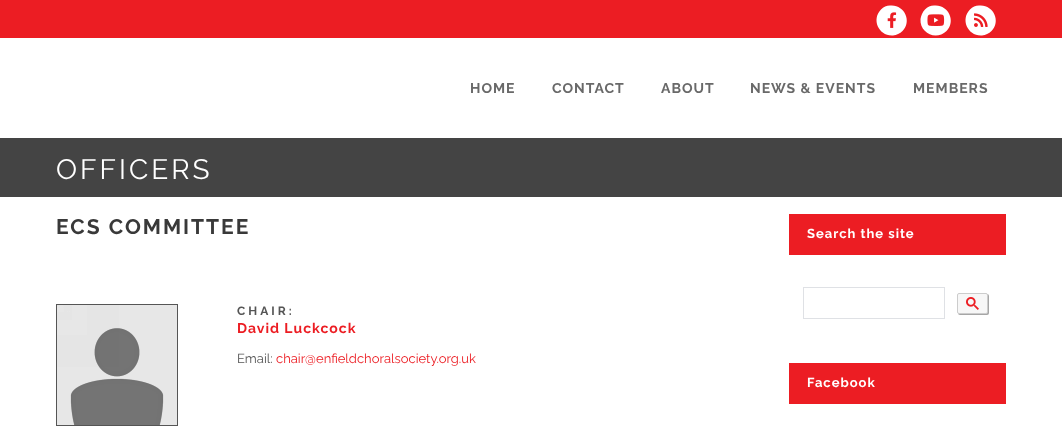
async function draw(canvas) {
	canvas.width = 1062;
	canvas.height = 442;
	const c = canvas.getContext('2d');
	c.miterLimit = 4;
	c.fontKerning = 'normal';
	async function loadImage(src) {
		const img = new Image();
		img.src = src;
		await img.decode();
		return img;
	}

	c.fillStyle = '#fff';
	c.fillRect(0, 0, 1062, 442);
	c.fillStyle = '#ec1d23';
	c.fillRect(0, 0, 1062, 38);
	c.fillStyle = '#fff';
	c.beginPath();
	c.moveTo(881, 9.5);
	c.bezierCurveTo(883.5, 7, 886.5, 5.5, 890, 5.5);
	c.bezierCurveTo(904, 4, 912.5, 21, 902.5, 31);
	c.bezierCurveTo(900, 33.5, 896.5, 35, 893, 35.5);
	c.bezierCurveTo(879, 36.5, 871, 19.5, 881, 9.5);
	c.closePath();
	c.fill();
	c.drawImage(await loadImage('img1.png'), 887, 12, 10, 16);
	c.beginPath();
	c.moveTo(925, 9.5);
	c.bezierCurveTo(927.5, 7, 930.5, 5.5, 934, 5.5);
	c.bezierCurveTo(948, 4, 956.5, 21, 946.5, 31);
	c.bezierCurveTo(936, 41, 919.5, 33, 920.5, 19);
	c.bezierCurveTo(921, 15.5, 922.5, 12, 925, 9.5);
	c.closePath();
	c.fill();
	c.drawImage(await loadImage('img2.png'), 927, 14, 18, 12);
	c.beginPath();
	c.moveTo(970, 9.5);
	c.bezierCurveTo(972.5, 7, 975.5, 5.5, 979, 5.5);
	c.bezierCurveTo(993, 4, 1001.5, 21, 991.5, 31);
	c.bezierCurveTo(989, 33.5, 985.5, 35, 982, 35.5);
	c.bezierCurveTo(968, 36.5, 960, 19.5, 970, 9.5);
	c.closePath();
	c.fill();
	c.drawImage(await loadImage('img3.png'), 974, 13, 14, 14);
	c.letterSpacing = '1px';
	c.font = 'bold 14px Raleway';
	c.fillStyle = '#696969';
	for (const [text, x, y] of [
		['HOME', 470, 93],
		['CONTACT', 552, 93],
		['ABOUT', 661, 93],
		['NEWS & EVENTS', 750, 93],
		['MEMBERS', 913, 93],
	]) {
		c.fillText(text, x, y);
	}
	c.fillStyle = '#444';
	c.fillRect(0, 138, 1062, 59);
	c.letterSpacing = '3px';
	c.font = '28px Raleway';
	c.fillStyle = '#fff';
	c.fillText('OFFICERS', 56, 179);
	c.letterSpacing = '2px';
	c.font = 'bold 21px Raleway';
	c.fillStyle = '#393939';
	c.fillText('ECS COMMITTEE', 56, 234);
	c.strokeStyle = '#555';
	c.strokeRect(56.5, 304.5, 121, 121);
	c.drawImage(await loadImage('img4.png'), 57, 305, 120, 120);
	c.letterSpacing = '3px';
	c.font = 'bold 12px Raleway';
	c.fillStyle = '#555';
	c.fillText('CHAIR:', 237, 315);
	c.letterSpacing = '1px';
	c.font = 'bold 14px Raleway';
	c.fillStyle = '#ec1d23';
	c.fillText('David Luckcock', 237, 333);
	c.letterSpacing = '0px';
	c.font = '13px Raleway';
	c.fillStyle = '#555';
	c.fillText('Email:', 237, 363);
	c.fillStyle = '#ec1d23';
	c.fillText('chair@enfieldchoralsociety.org.uk', 276, 363);
	c.fillRect(789, 214, 217, 41);
	c.letterSpacing = '1px';
	c.font = 'bold 13px Raleway';
	c.fillStyle = '#fff';
	c.fillText('Search the site', 807, 238);
	c.strokeStyle = '#dfe1e5';
	c.strokeRect(803.5, 287.5, 141, 31);
	c.fillStyle = '#00000059';
	c.filter = 'blur(0.5px)';
	c.beginPath();
	c.roundRect(958, 294, 31, 21, 2);
	c.fill();
	c.filter = 'none';
	c.fillStyle = '#f7f7f7';
	c.beginPath();
	c.roundRect(957.5, 293.5, 30, 20, 1.5);
	c.fill();
	c.strokeStyle = '#ccc';
	c.stroke();
	c.drawImage(await loadImage('img5.png'), 966, 297, 13, 13);
	c.fillStyle = '#ec1d23';
	c.fillRect(789, 363, 217, 41);
	c.fillStyle = '#fff';
	c.fillText('Facebook', 807, 387);
}

draw(document.querySelector('canvas'));
